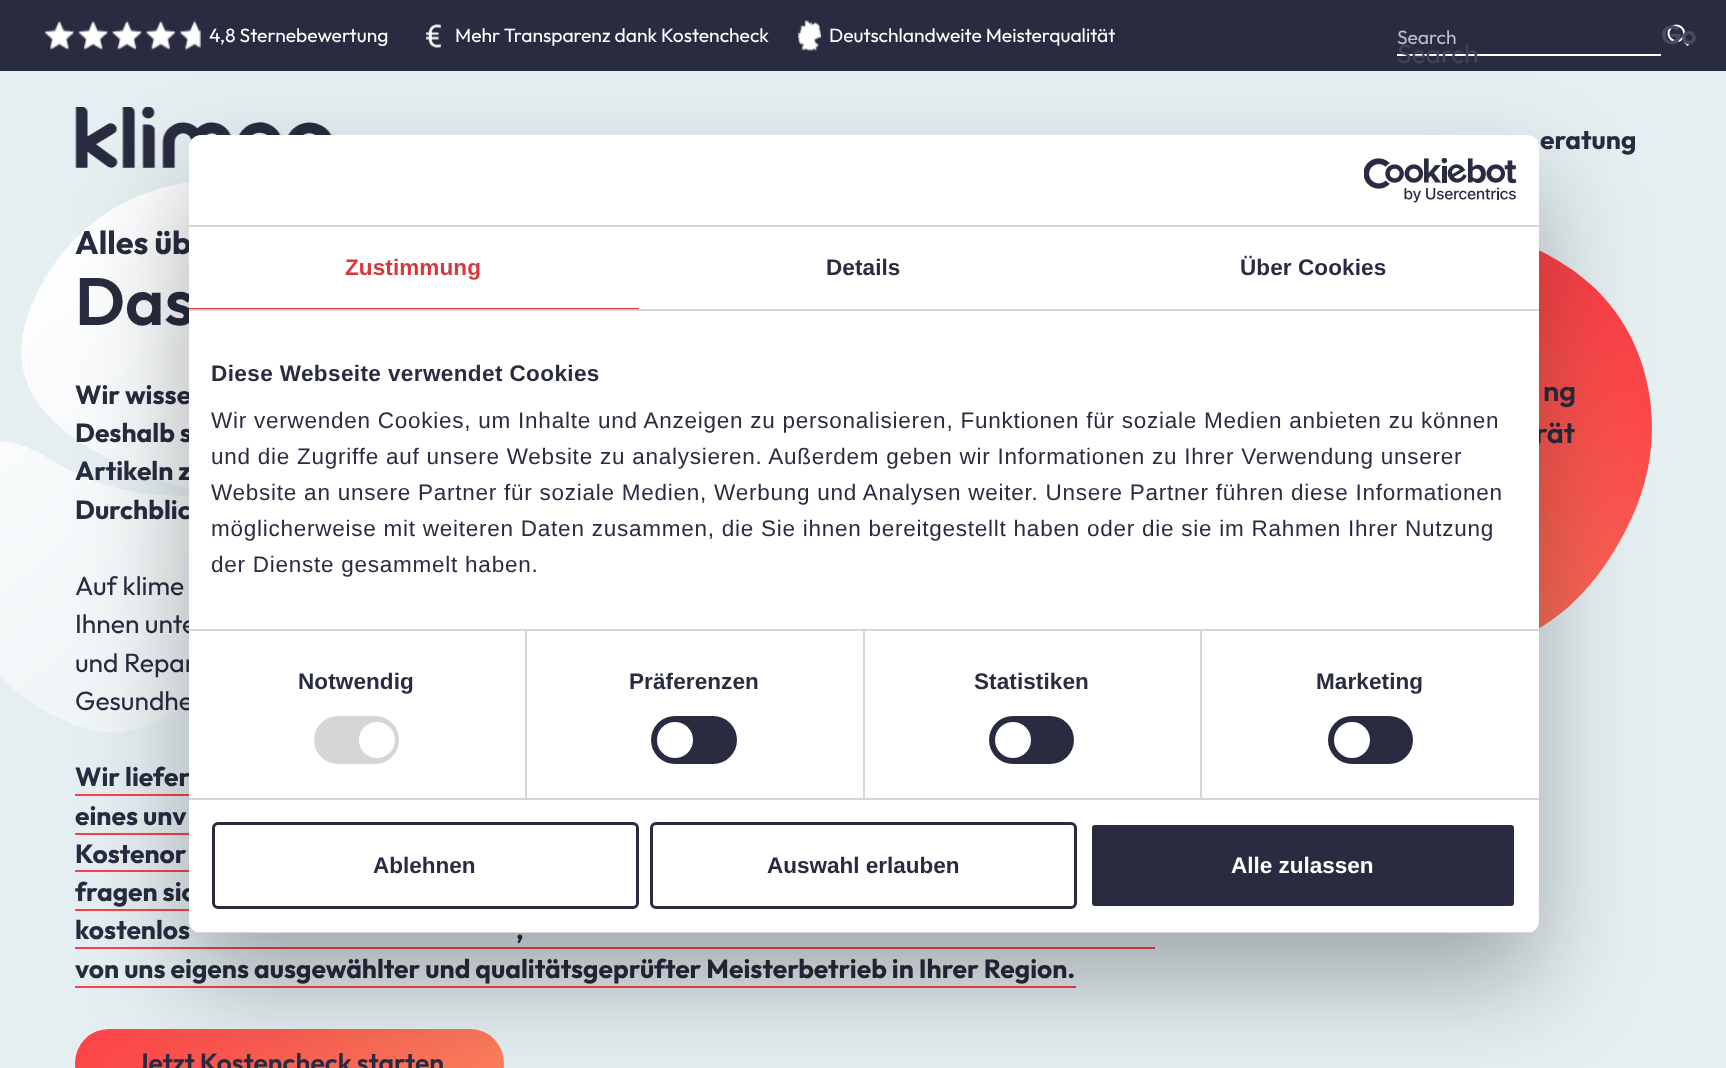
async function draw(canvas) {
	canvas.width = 1726;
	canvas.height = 1068;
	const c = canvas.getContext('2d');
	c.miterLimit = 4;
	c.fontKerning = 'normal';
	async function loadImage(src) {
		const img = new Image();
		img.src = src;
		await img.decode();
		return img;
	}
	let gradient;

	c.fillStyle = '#e5eff2';
	c.fillRect(0, 0, 1726, 1068);
	c.fillStyle = '#292b40';
	c.fillRect(0, 0, 1726, 71);
	c.drawImage(await loadImage('img1.png'), 45, 20, 156, 31);
	c.font = '100 19.25px "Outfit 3"';
	c.fillStyle = '#fff';
	c.fillText('4,8 Sternebewertung', 209, 42);
	c.drawImage(await loadImage('img2.png'), 426, 24, 15, 24);
	c.fillText('Mehr Transparenz dank Kostencheck', 455, 42);
	c.drawImage(await loadImage('img3.png'), 798, 20, 24, 32);
	c.fillText('Deutschlandweite Meisterqualität', 829, 42);
	c.fillRect(1397, 54, 264, 2);
	c.fillStyle = '#bfbfc6';
	c.fillText('Search', 1397, 44);
	c.font = '100 26.4px "Outfit 3"';
	c.fillStyle = '#424356';
	c.fillText('Search', 1397, 63);
	c.drawImage(await loadImage('img4.png'), 1667, 24, 22, 22);
	c.font = '100 26.4px "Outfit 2"';
	c.fillStyle = '#4a4c5d';
	c.fillText('Go', 1661, 44);
	c.drawImage(await loadImage('img5.png'), 75, 107, 257, 61);
	c.font = '100 26.4px Outfit';
	c.fillStyle = '#292b40';
	c.fillText('eratung', 1540, 149);
	c.drawImage(await loadImage('img6.png'), 0, 182, 189, 551);
	c.font = '100 32.5px Outfit';
	c.fillText('Alles üb', 75, 254);
	c.font = '100 67px "Outfit 2"';
	c.fillText('Das', 75, 325);
	c.font = '100 26.4px Outfit';
	for (const [text, x, y] of [
		['Wir wisse', 75, 404],
		['Deshalb s', 75, 442],
		['Artikeln z', 75, 480],
		['Durchblic', 75, 519],
	]) {
		c.fillText(text, x, y);
	}
	c.font = '100 26.4px "Outfit 3"';
	for (const [text, x, y] of [
		['Auf klime', 75, 595],
		['Ihnen unte', 75, 633],
		['und Repar', 75, 672],
		['Gesundhe', 75, 710],
	]) {
		c.fillText(text, x, y);
	}
	c.font = '100 26.4px Outfit';
	c.fillText('Wir liefer', 75, 786);
	c.fillStyle = '#fc4248';
	c.fillRect(75, 794, 114, 2);
	c.fillStyle = '#292b40';
	c.fillText('eines unv', 75, 825);
	c.fillStyle = '#fc4248';
	c.fillRect(75, 833, 114, 2);
	c.fillStyle = '#292b40';
	c.fillText('Kostenor', 75, 863);
	c.fillStyle = '#fc4248';
	c.fillRect(75, 870, 114, 2);
	c.fillStyle = '#292b40';
	c.fillText('fragen sic', 75, 901);
	c.fillStyle = '#fc4248';
	c.fillRect(75, 909, 114, 2);
	c.fillStyle = '#292b40';
	c.fillText('kostenlos', 75, 939);
	c.fillText(',', 516, 939);
	c.fillStyle = '#fc4248';
	c.fillRect(75, 947, 1080, 2);
	c.fillStyle = '#292b40';
	c.fillText('von uns eigens ausgewählter und qualitätsgeprüfter Meisterbetrieb in Ihrer Region.', 75, 978);
	c.fillStyle = '#fc4248';
	c.fillRect(75, 986, 1001, 2);
	gradient = c.createLinearGradient(117, 959, 462, 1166);
	gradient.addColorStop(0, '#fc4248');
	gradient.addColorStop(1, '#fd815e');
	c.fillStyle = gradient;
	c.beginPath();
	c.roundRect(75, 1029, 429, 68, 34);
	c.fill();
	c.font = '100 26.4px "Outfit 2"';
	c.fillStyle = '#292b40';
	c.fillText('Jetzt Kostencheck starten', 135, 1072);
	gradient = c.createLinearGradient(1616, 321, 1332, 550);
	gradient.addColorStop(0, '#fc4248');
	gradient.addColorStop(1, '#fd815e');
	c.fillStyle = gradient;
	c.beginPath();
	c.moveTo(1351, 557);
	c.lineTo(1304, 515);
	c.bezierCurveTo(1265, 481, 1209, 434, 1211, 378);
	c.bezierCurveTo(1212, 321, 1258, 284, 1303, 257);
	c.bezierCurveTo(1386, 207, 1508, 217, 1583, 278);
	c.bezierCurveTo(1651, 332, 1669, 429, 1636, 508);
	c.bezierCurveTo(1616, 556, 1582, 605, 1536, 630);
	c.bezierCurveTo(1480, 660, 1434, 630, 1391, 593);
	c.closePath();
	c.fill();
	c.font = '100 29px "Outfit 2"';
	c.fillStyle = '#292b40';
	c.fillText('ng', 1543, 401);
	c.fillText('rät', 1535, 443);
	c.fillStyle = '#0000004d';
	c.filter = 'blur(51px)';
	c.beginPath();
	c.roundRect(189, 183, 1350, 798, 12);
	c.fill();
	c.filter = 'none';
	c.fillStyle = '#fff';
	c.beginPath();
	c.roundRect(189, 135, 1350, 798, 12);
	c.fill();
	c.fillStyle = '#d6d6d6';
	c.fillRect(189, 225, 1350, 2);
	c.drawImage(await loadImage('img7.png'), 1364, 158, 153, 45);
	c.fillRect(189, 309, 1350, 2);
	c.fillStyle = '#d9373c';
	c.fillRect(189, 308, 450, 1);
	c.letterSpacing = '0.1px';
	c.font = 'bold 22.5px Liberation Sans';
	c.fillText('Zustimmung', 345, 275);
	c.fillStyle = '#292b40';
	c.fillText('Details', 826, 275);
	c.fillText('Über Cookies', 1240, 275);
	for (const [x, y, w, h, color] of [
		[525, 630, 2, 168, '#d6d6d6'],
		[863, 630, 2, 168, '#d6d6d6'],
		[1200, 630, 2, 168, '#d6d6d6'],
		[189, 629, 1350, 2, '#d6d6d6'],
	]) {
		c.fillStyle = color;
		c.fillRect(x, y, w, h);
	}
	c.letterSpacing = '0.4px';
	c.fillStyle = '#292b40';
	c.fillText('Diese Webseite verwendet Cookies', 211, 381);
	c.letterSpacing = '0.75px';
	c.font = '22.5px Liberation Sans';
	for (const [text, x, y] of [
		['Wir verwenden Cookies, um Inhalte und Anzeigen zu personalisieren, Funktionen für soziale Medien anbieten zu können', 211, 428],
		['und die Zugriffe auf unsere Website zu analysieren. Außerdem geben wir Informationen zu Ihrer Verwendung unserer', 211, 464],
		['Website an unsere Partner für soziale Medien, Werbung und Analysen weiter. Unsere Partner führen diese Informationen', 211, 500],
		['möglicherweise mit weiteren Daten zusammen, die Sie ihnen bereitgestellt haben oder die sie im Rahmen Ihrer Nutzung', 211, 536],
		['der Dienste gesammelt haben.', 211, 572],
	]) {
		c.fillText(text, x, y);
	}
	c.fillStyle = '#d6d6d6';
	c.fillRect(189, 798, 1350, 2);
	c.letterSpacing = '0.1px';
	c.font = 'bold 22.5px Liberation Sans';
	c.fillStyle = '#292b40';
	c.fillText('Notwendig', 298, 689);
	c.fillStyle = '#d6d6d6';
	c.beginPath();
	c.roundRect(314, 716, 85, 48, 24);
	c.fill();
	c.fillStyle = '#fff';
	c.beginPath();
	c.arc(377, 740, 18, 0, 2 * Math.PI);
	c.fill();
	c.fillStyle = '#292b40';
	c.fillText('Präferenzen', 629, 689);
	c.beginPath();
	c.roundRect(651, 716, 86, 48, 24);
	c.fill();
	c.fillStyle = '#fff';
	c.beginPath();
	c.arc(675, 740, 18, 0, 2 * Math.PI);
	c.fill();
	c.fillStyle = '#292b40';
	c.fillText('Statistiken', 974, 689);
	c.beginPath();
	c.roundRect(989, 716, 85, 48, 24);
	c.fill();
	c.fillStyle = '#fff';
	c.beginPath();
	c.arc(1013, 740, 18, 0, 2 * Math.PI);
	c.fill();
	c.fillStyle = '#292b40';
	c.fillText('Marketing', 1316, 689);
	c.beginPath();
	c.roundRect(1328, 716, 85, 48, 24);
	c.fill();
	c.fillStyle = '#fff';
	c.beginPath();
	c.arc(1352, 740, 18, 0, 2 * Math.PI);
	c.fill();
	c.save();
	c.beginPath();
	c.roundRect(189, 135, 1350, 798, 12);
	c.clip();
	c.fillStyle = '#d6d6d6';
	c.fillRect(189, 932, 1350, 1);
	c.restore();
	c.beginPath();
	c.roundRect(213.5, 823.5, 424, 84, 4.5);
	c.strokeStyle = '#292b40';
	c.lineWidth = 3;
	c.stroke();
	c.letterSpacing = '0px';
	c.fillStyle = '#292b40';
	c.fillText('Ablehnen', 373, 873);
	c.beginPath();
	c.roundRect(651.5, 823.5, 424, 84, 4.5);
	c.stroke();
	c.fillText('Auswahl erlauben', 767, 873);
	c.beginPath();
	c.roundRect(1090.5, 823.5, 425, 84, 4.5);
	c.fill();
	c.strokeStyle = '#fff';
	c.stroke();
	c.fillStyle = '#fff';
	c.fillText('Alle zulassen', 1231, 873);
}

draw(document.querySelector('canvas'));
